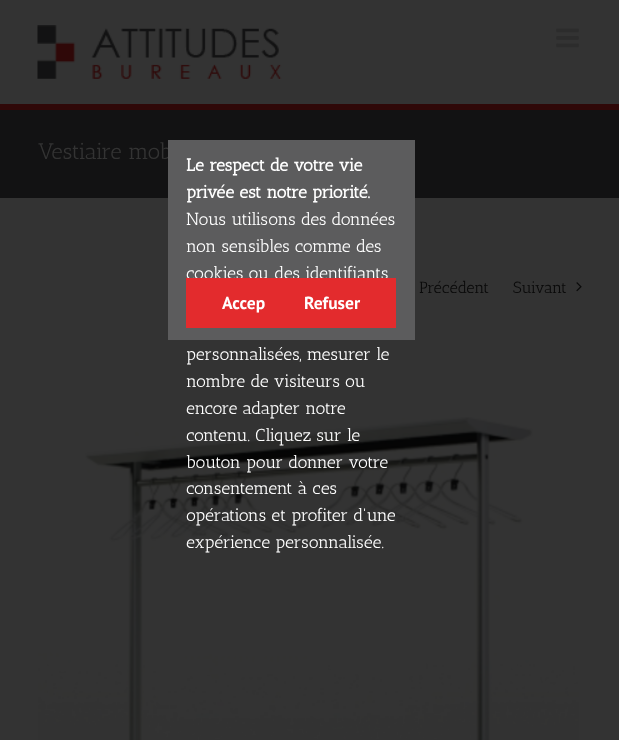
async function draw(canvas) {
	canvas.width = 619;
	canvas.height = 740;
	const c = canvas.getContext('2d');
	c.miterLimit = 4;
	c.fontKerning = 'normal';
	async function loadImage(src) {
		const img = new Image();
		img.src = src;
		await img.decode();
		return img;
	}

	c.fillStyle = '#333';
	c.fillRect(0, 0, 619, 740);
	c.drawImage(await loadImage('img1.png'), 37, 25, 245, 54);
	c.drawImage(await loadImage('img2.png'), 556, 28, 23, 20);
	c.fillStyle = '#121213';
	c.fillRect(0, 110, 619, 88);
	c.fillStyle = '#2f0808';
	c.fillRect(0, 104, 619, 6);
	c.font = '22.5px Antic Slab';
	c.fillStyle = '#333';
	c.fillText('Vestiaire mob', 38, 159);
	c.font = '16.25px Antic Slab';
	c.fillStyle = '#0a0a0a';
	c.fillText('Précédent', 419, 293);
	c.fillText('Suivant', 513, 293);
	c.drawImage(await loadImage('img3.png'), 576, 282, 6, 10);
	c.drawImage(await loadImage('img4.png'), 38, 417, 541, 323);
	c.fillStyle = '#5c5c5d';
	c.fillRect(168, 140, 247, 200);
	c.font = 'bold 17.5px Antic Slab';
	c.fillStyle = '#fff';
	c.fillText('Le respect de votre vie', 186, 171);
	c.fillText('privée est notre priorité.', 186, 198);
	c.font = '17.5px Antic Slab';
	for (const [text, x, y] of [
		['Nous utilisons des données', 186, 225],
		['non sensibles comme des', 186, 252],
		['cookies ou des identifiants', 186, 279],
		['personnalisées, mesurer le', 186, 360],
		['nombre de visiteurs ou', 186, 387],
		['encore adapter notre', 186, 414],
		['contenu. Cliquez sur le', 186, 441],
		['bouton pour donner votre', 186, 468],
		['consentement à ces', 186, 494],
		['opérations et profiter d\'une', 186, 521],
		['expérience personnalisée.', 186, 548],
	]) {
		c.fillText(text, x, y);
	}
	c.fillStyle = '#e32b2d';
	c.fillRect(186, 278, 210, 50);
	c.font = 'bold 17.5px PT Sans';
	c.fillStyle = '#fff';
	c.fillText('Accep', 222, 309);
	c.fillText('Refuser', 304, 309);
}

draw(document.querySelector('canvas'));
